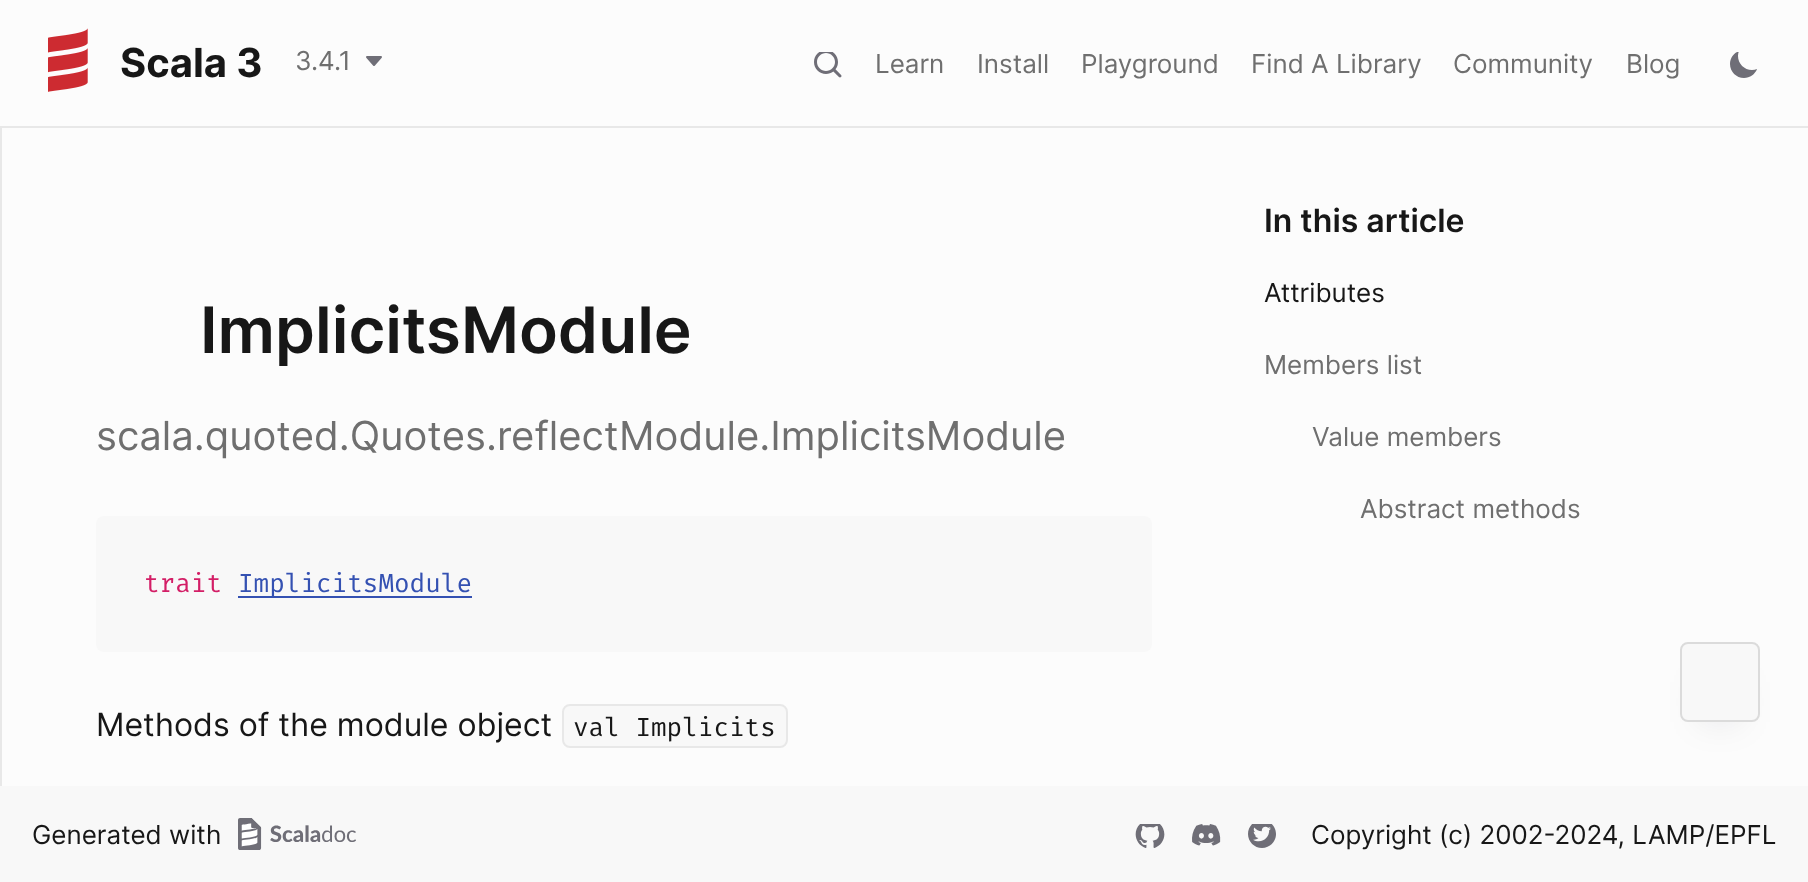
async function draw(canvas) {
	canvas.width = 1808;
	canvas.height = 882;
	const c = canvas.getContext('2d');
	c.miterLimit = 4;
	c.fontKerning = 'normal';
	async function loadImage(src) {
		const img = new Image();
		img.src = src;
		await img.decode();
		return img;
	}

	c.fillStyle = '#fcfcfc';
	c.fillRect(0, 0, 1808, 882);
	c.fillStyle = '#e8e8e8';
	c.fillRect(0, 126, 1808, 2);
	c.drawImage(await loadImage('img1.png'), 48, 28, 40, 64);
	c.font = 'bold 40px Inter';
	c.fillStyle = '#171717';
	c.fillText('Scala 3', 120, 77);
	c.font = '26px Inter';
	c.fillStyle = '#6f6f6f';
	c.fillText('3.4.1', 295, 70);
	c.drawImage(await loadImage('img2.png'), 366, 56, 16, 10);
	c.drawImage(await loadImage('img3.png'), 814, 52, 28, 26);
	for (const [text, x, y] of [
		['Learn', 875, 73],
		['Install', 977, 73],
		['Playground', 1081, 73],
		['Find A Library', 1251, 73],
		['Community', 1453, 73],
		['Blog', 1626, 73],
	]) {
		c.fillText(text, x, y);
	}
	c.drawImage(await loadImage('img4.png'), 1730, 52, 27, 26);
	c.fillStyle = '#e8e8e8';
	c.fillRect(0, 128, 2, 660);
	c.font = '600 64px Inter';
	c.fillStyle = '#171717';
	c.fillText('ImplicitsModule', 200, 353);
	c.font = '40px Inter';
	c.fillStyle = '#6f6f6f';
	c.fillText('scala.quoted.Quotes.reflectModule.ImplicitsModule', 96, 450);
	c.fillStyle = '#f8f8f8';
	c.beginPath();
	c.roundRect(96, 516, 1056, 136, 8);
	c.fill();
	c.font = '26px Fira Code';
	c.fillStyle = '#d31e66';
	c.fillText('trait', 144, 592);
	c.fillStyle = '#3451b2';
	c.fillRect(238, 596, 234, 2);
	c.fillText('ImplicitsModule', 238, 592);
	c.font = '32px Inter';
	c.fillStyle = '#171717';
	c.fillText('Methods of the module object', 96, 736);
	c.fillStyle = '#f8f8f8';
	c.beginPath();
	c.roundRect(563, 705, 224, 42, 7);
	c.fill();
	c.strokeStyle = '#e8e8e8';
	c.lineWidth = 2;
	c.stroke();
	c.font = '26px Fira Code';
	c.fillStyle = '#171717';
	c.fillText('val Implicits', 573, 736);
	c.font = '600 32px Inter';
	c.fillText('In this article', 1264, 232);
	c.font = '26px Inter';
	c.fillText('Attributes', 1264, 302);
	c.fillStyle = '#6f6f6f';
	for (const [text, x, y] of [
		['Members list', 1264, 374],
		['Value members', 1312, 446],
		['Abstract methods', 1360, 518],
	]) {
		c.fillText(text, x, y);
	}
	c.fillStyle = '#0e121659';
	c.filter = 'blur(20px)';
	c.beginPath();
	c.rect(1710, 692, 20, 20);
	c.fill();
	c.filter = 'none';
	c.fillStyle = '#f8f8f8';
	c.beginPath();
	c.roundRect(1681, 643, 78, 78, 7);
	c.fill();
	c.strokeStyle = '#dbdbdb';
	c.stroke();
	c.fillRect(0, 786, 1808, 96);
	c.fillStyle = '#171717';
	c.fillText('Generated with', 32, 844);
	c.drawImage(await loadImage('img5.png'), 238, 818, 118, 32);
	c.drawImage(await loadImage('img6.png'), 1135, 824, 30, 24);
	c.drawImage(await loadImage('img7.png'), 1192, 824, 29, 22);
	c.drawImage(await loadImage('img8.png'), 1248, 824, 28, 24);
	c.fillText('Copyright (c) 2002-2024, LAMP/EPFL', 1311, 844);
}

draw(document.querySelector('canvas'));
